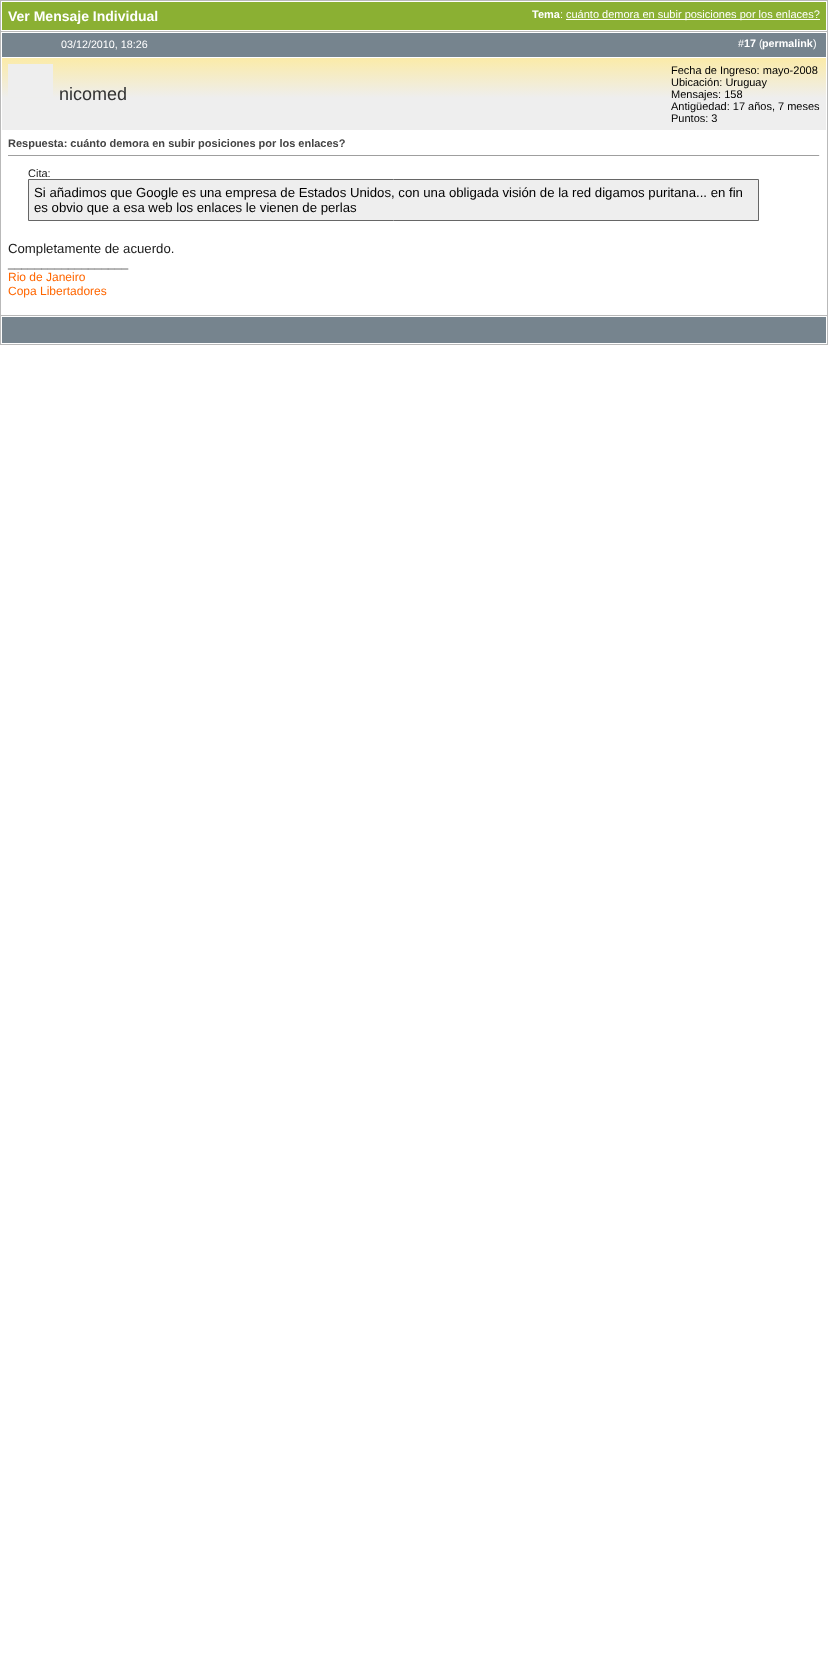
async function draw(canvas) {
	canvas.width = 828;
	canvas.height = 1666;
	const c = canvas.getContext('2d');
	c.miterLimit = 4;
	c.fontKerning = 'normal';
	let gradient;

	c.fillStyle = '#fff';
	c.fillRect(0, 0, 828, 1666);
	for (const [x, y, w, h, color] of [
		[0, 0, 828, 1, '#b9b9b9'],
		[827, 0, 1, 31, '#b9b9b9'],
		[0, 0, 1, 31, '#b9b9b9'],
		[2, 2, 824, 28, '#8bb033'],
	]) {
		c.fillStyle = color;
		c.fillRect(x, y, w, h);
	}
	c.font = 'bold 14px Liberation Sans';
	c.fillStyle = '#fff';
	c.fillText('Ver Mensaje Individual', 8, 21);
	c.font = 'bold 11px Liberation Sans';
	c.fillText('Tema', 532, 18);
	c.font = '11px Liberation Sans';
	c.fillText(':', 560, 18);
	c.fillRect(566, 19, 254, 1);
	c.fillText('cuánto demora en subir posiciones por los enlaces?', 566, 18);
	c.strokeStyle = '#b9b9b9';
	c.strokeRect(0.5, 31.5, 827, 284);
	c.fillStyle = '#76848e';
	c.fillRect(2, 33, 824, 24);
	c.font = '10.75px Liberation Sans';
	c.fillStyle = '#fff';
	c.fillText('03/12/2010, 18:26', 61, 48);
	c.fillText('#', 738, 47);
	c.font = 'bold 10.75px Liberation Sans';
	c.fillText('17', 744, 47);
	c.font = '10.75px Liberation Sans';
	c.fillText('(', 759, 47);
	c.font = 'bold 10.75px Liberation Sans';
	c.fillText('permalink', 762, 47);
	c.font = '10.75px Liberation Sans';
	c.fillText(')', 813, 47);
	gradient = c.createLinearGradient(2, 58, 2, 98);
	gradient.addColorStop(0, '#fbeba8');
	gradient.addColorStop(1, '#eee');
	c.fillStyle = gradient;
	c.fillRect(2, 58, 824, 72);
	c.fillStyle = '#eee';
	c.fillRect(8, 64, 45, 33);
	c.font = '18px Liberation Sans';
	c.fillStyle = '#333';
	c.fillText('nicomed', 59, 100);
	c.font = '11px Liberation Sans';
	c.fillStyle = '#000';
	for (const [text, x, y] of [
		['Fecha de Ingreso: mayo-2008', 671, 74],
		['Ubicación: Uruguay', 671, 86],
		['Mensajes: 158', 671, 98],
		['Antigüedad: 17 años, 7 meses', 671, 110],
		['Puntos: 3', 671, 122],
	]) {
		c.fillText(text, x, y);
	}
	c.font = 'bold 11px Liberation Sans';
	c.fillStyle = '#444';
	c.fillText('Respuesta: cuánto demora en subir posiciones por los enlaces?', 8, 147);
	c.fillStyle = '#9f9f9f';
	c.fillRect(8, 155, 812, 1);
	c.fillStyle = '#eee';
	c.fillRect(819, 155, 1, 1);
	c.font = '11px Liberation Sans';
	c.fillStyle = '#1a1a1a';
	c.fillText('Cita:', 28, 177);
	c.fillStyle = '#eee';
	c.beginPath();
	c.rect(28.5, 179.5, 730, 41);
	c.fill();
	c.strokeStyle = '#666';
	c.stroke();
	c.font = '13.2px Liberation Sans';
	c.fillStyle = '#000';
	c.fillText('Si añadimos que Google es una empresa de Estados Unidos, con una obligada visión de la red digamos puritana... en fin', 34, 197);
	c.fillText('es obvio que a esa web los enlaces le vienen de perlas', 34, 212);
	c.fillStyle = '#1a1a1a';
	c.fillText('Completamente de acuerdo.', 8, 253);
	c.font = '12px Liberation Sans';
	c.fillStyle = '#444';
	c.fillText('__________________', 8, 267);
	c.fillStyle = '#f60';
	c.fillText('Rio de Janeiro', 8, 281);
	c.fillText('Copa Libertadores', 8, 295);
	for (const [x, y, w, h, color] of [
		[827, 316, 1, 29, '#b9b9b9'],
		[0, 344, 828, 1, '#b9b9b9'],
		[0, 316, 1, 29, '#b9b9b9'],
		[2, 317, 824, 26, '#76848e'],
	]) {
		c.fillStyle = color;
		c.fillRect(x, y, w, h);
	}
}

draw(document.querySelector('canvas'));
